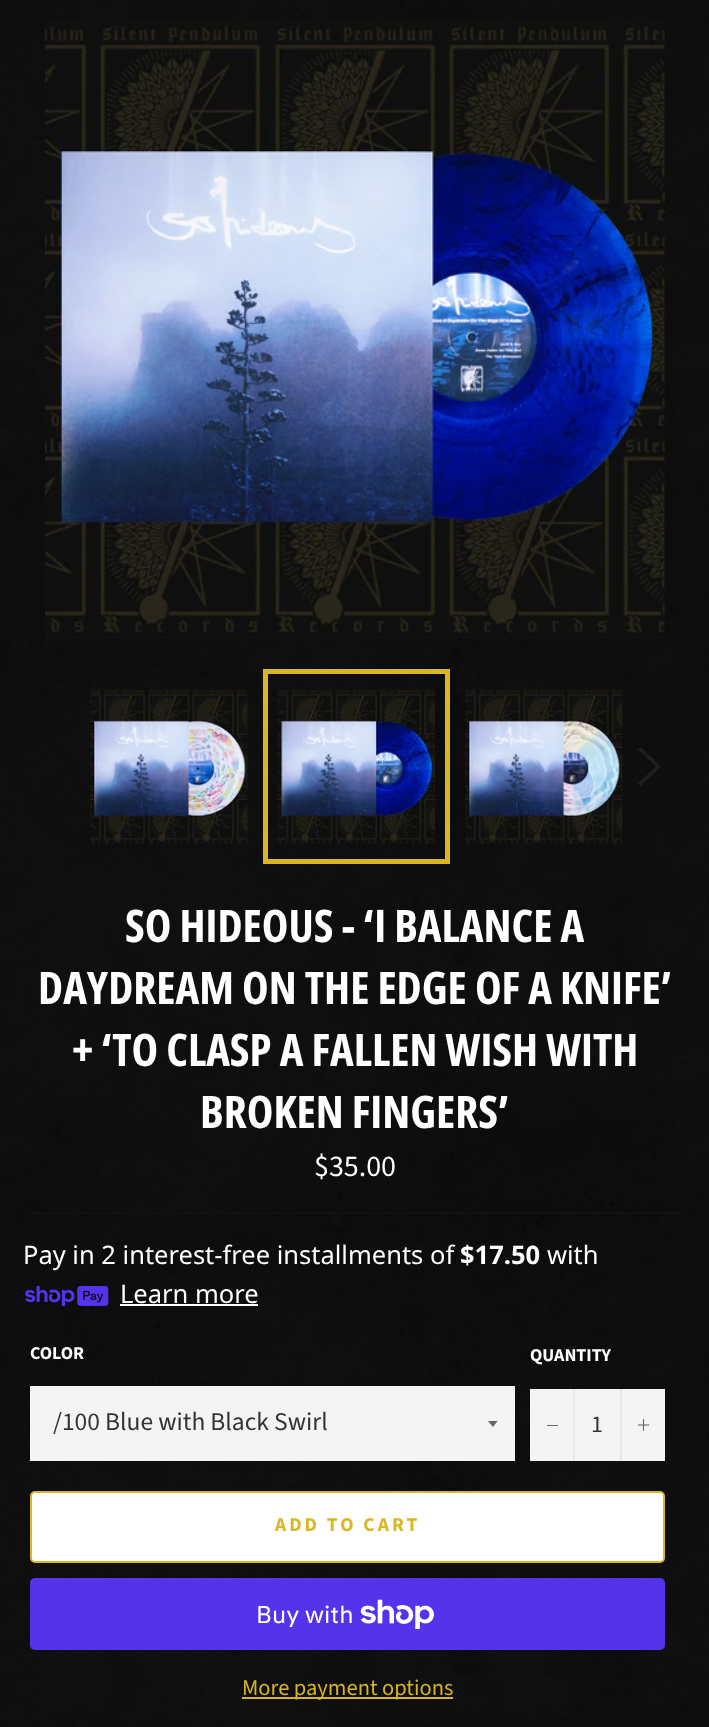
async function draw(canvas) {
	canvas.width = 709;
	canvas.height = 1727;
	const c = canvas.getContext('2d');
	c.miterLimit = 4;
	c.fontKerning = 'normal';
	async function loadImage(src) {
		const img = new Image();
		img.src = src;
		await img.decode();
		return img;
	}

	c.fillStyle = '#fff';
	c.fillRect(0, 0, 709, 1727);
	c.drawImage(await loadImage('img1.png'), 0, 0, 709, 1727);
	c.drawImage(await loadImage('img2.png'), 45, 19, 620, 620);
	c.drawImage(await loadImage('img3.png'), 90, 688, 158, 157);
	c.drawImage(await loadImage('img4.png'), 277, 688, 158, 157);
	c.strokeStyle = '#d8b723';
	c.lineWidth = 5;
	c.strokeRect(265.5, 671.5, 182, 190);
	c.drawImage(await loadImage('img5.png'), 465, 688, 158, 157);
	c.fillStyle = '#66666633';
	c.beginPath();
	c.moveTo(638, 749.5);
	c.lineTo(640.5, 747);
	c.lineTo(661, 766.5);
	c.lineTo(640.5, 786);
	c.lineTo(638, 783.5);
	c.lineTo(656, 766.5);
	c.closePath();
	c.fill();
	c.font = 'bold 45px Open Sans Condensed';
	c.fillStyle = '#fff';
	for (const [text, x, y] of [
		['SO HIDEOUS - ‘I BALANCE A', 125, 942],
		['DAYDREAM ON THE EDGE OF A KNIFE’', 38, 1004],
		['+ ‘TO CLASP A FALLEN WISH WITH', 72, 1066],
		['BROKEN FINGERS’', 200, 1128],
	]) {
		c.fillText(text, x, y);
	}
	c.font = '30px Source Sans Pro';
	c.fillText('$35.00', 314, 1176);
	c.fillStyle = '#111';
	c.fillRect(30, 1212, 650, 2);
	c.font = '25.5px Noto Sans';
	c.fillStyle = '#fff';
	c.fillText('Pay in 2 interest-free installments of', 23, 1264);
	c.font = 'bold 25.5px Noto Sans';
	c.fillText('$17.50', 460, 1264);
	c.font = '25.5px Noto Sans';
	c.fillText('with', 547, 1264);
	c.drawImage(await loadImage('img6.png'), 25, 1286, 84, 21);
	c.fillText('Learn more', 120, 1303);
	c.fillRect(120, 1304, 138, 2);
	c.font = 'bold 18px Source Sans Pro';
	c.fillText('COLOR', 30, 1359);
	c.fillStyle = '#f4f4f4';
	c.fillRect(30, 1386, 485, 75);
	c.save();
	c.beginPath();
	c.rect(488, 1421, 12, 7);
	c.clip();
	c.fillStyle = '#666';
	c.beginPath();
	c.moveTo(487.5, 1420.5);
	c.lineTo(493, 1427);
	c.lineTo(498, 1420.5);
	c.closePath();
	c.fill();
	c.restore();
	c.font = '25.5px Source Sans Pro';
	c.fillStyle = '#333';
	c.fillText('/100 Blue with Black Swirl', 53, 1430);
	c.font = 'bold 18px Source Sans Pro';
	c.fillStyle = '#fff';
	c.fillText('QUANTITY', 530, 1361);
	for (const [x, y, w, h, color] of [
		[530, 1389, 135, 72, '#f4f4f4'],
		[573, 1389, 2, 72, '#e7e7e7'],
		[547, 1425, 11, 1, '#666'],
	]) {
		c.fillStyle = color;
		c.fillRect(x, y, w, h);
	}
	c.font = '24px Source Sans Pro';
	c.fillStyle = '#333';
	c.fillText('1', 591, 1432);
	c.fillStyle = '#e7e7e7';
	c.fillRect(620, 1389, 2, 72);
	c.drawImage(await loadImage('img7.png'), 638, 1419, 12, 12);
	c.fillStyle = '#fff';
	c.beginPath();
	c.roundRect(31, 1492, 633, 70, 4);
	c.fill();
	c.lineWidth = 2;
	c.stroke();
	c.letterSpacing = '3px';
	c.font = 'bold 19.5px Source Sans Pro';
	c.fillStyle = '#d8b723';
	c.fillText('ADD TO CART', 275, 1531);
	c.fillStyle = '#5433eb';
	c.beginPath();
	c.roundRect(30, 1578, 635, 72, 5);
	c.fill();
	c.letterSpacing = '0px';
	c.font = '24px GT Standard';
	c.fillStyle = '#fff';
	c.fillText('Buy with', 256, 1623);
	c.drawImage(await loadImage('img8.png'), 360, 1599, 74, 30);
	c.fillStyle = '#d8b723';
	c.fillRect(242, 1697, 211, 2);
	c.font = '22.5px Source Sans Pro';
	c.fillText('More payment options', 242, 1695);
}

draw(document.querySelector('canvas'));
